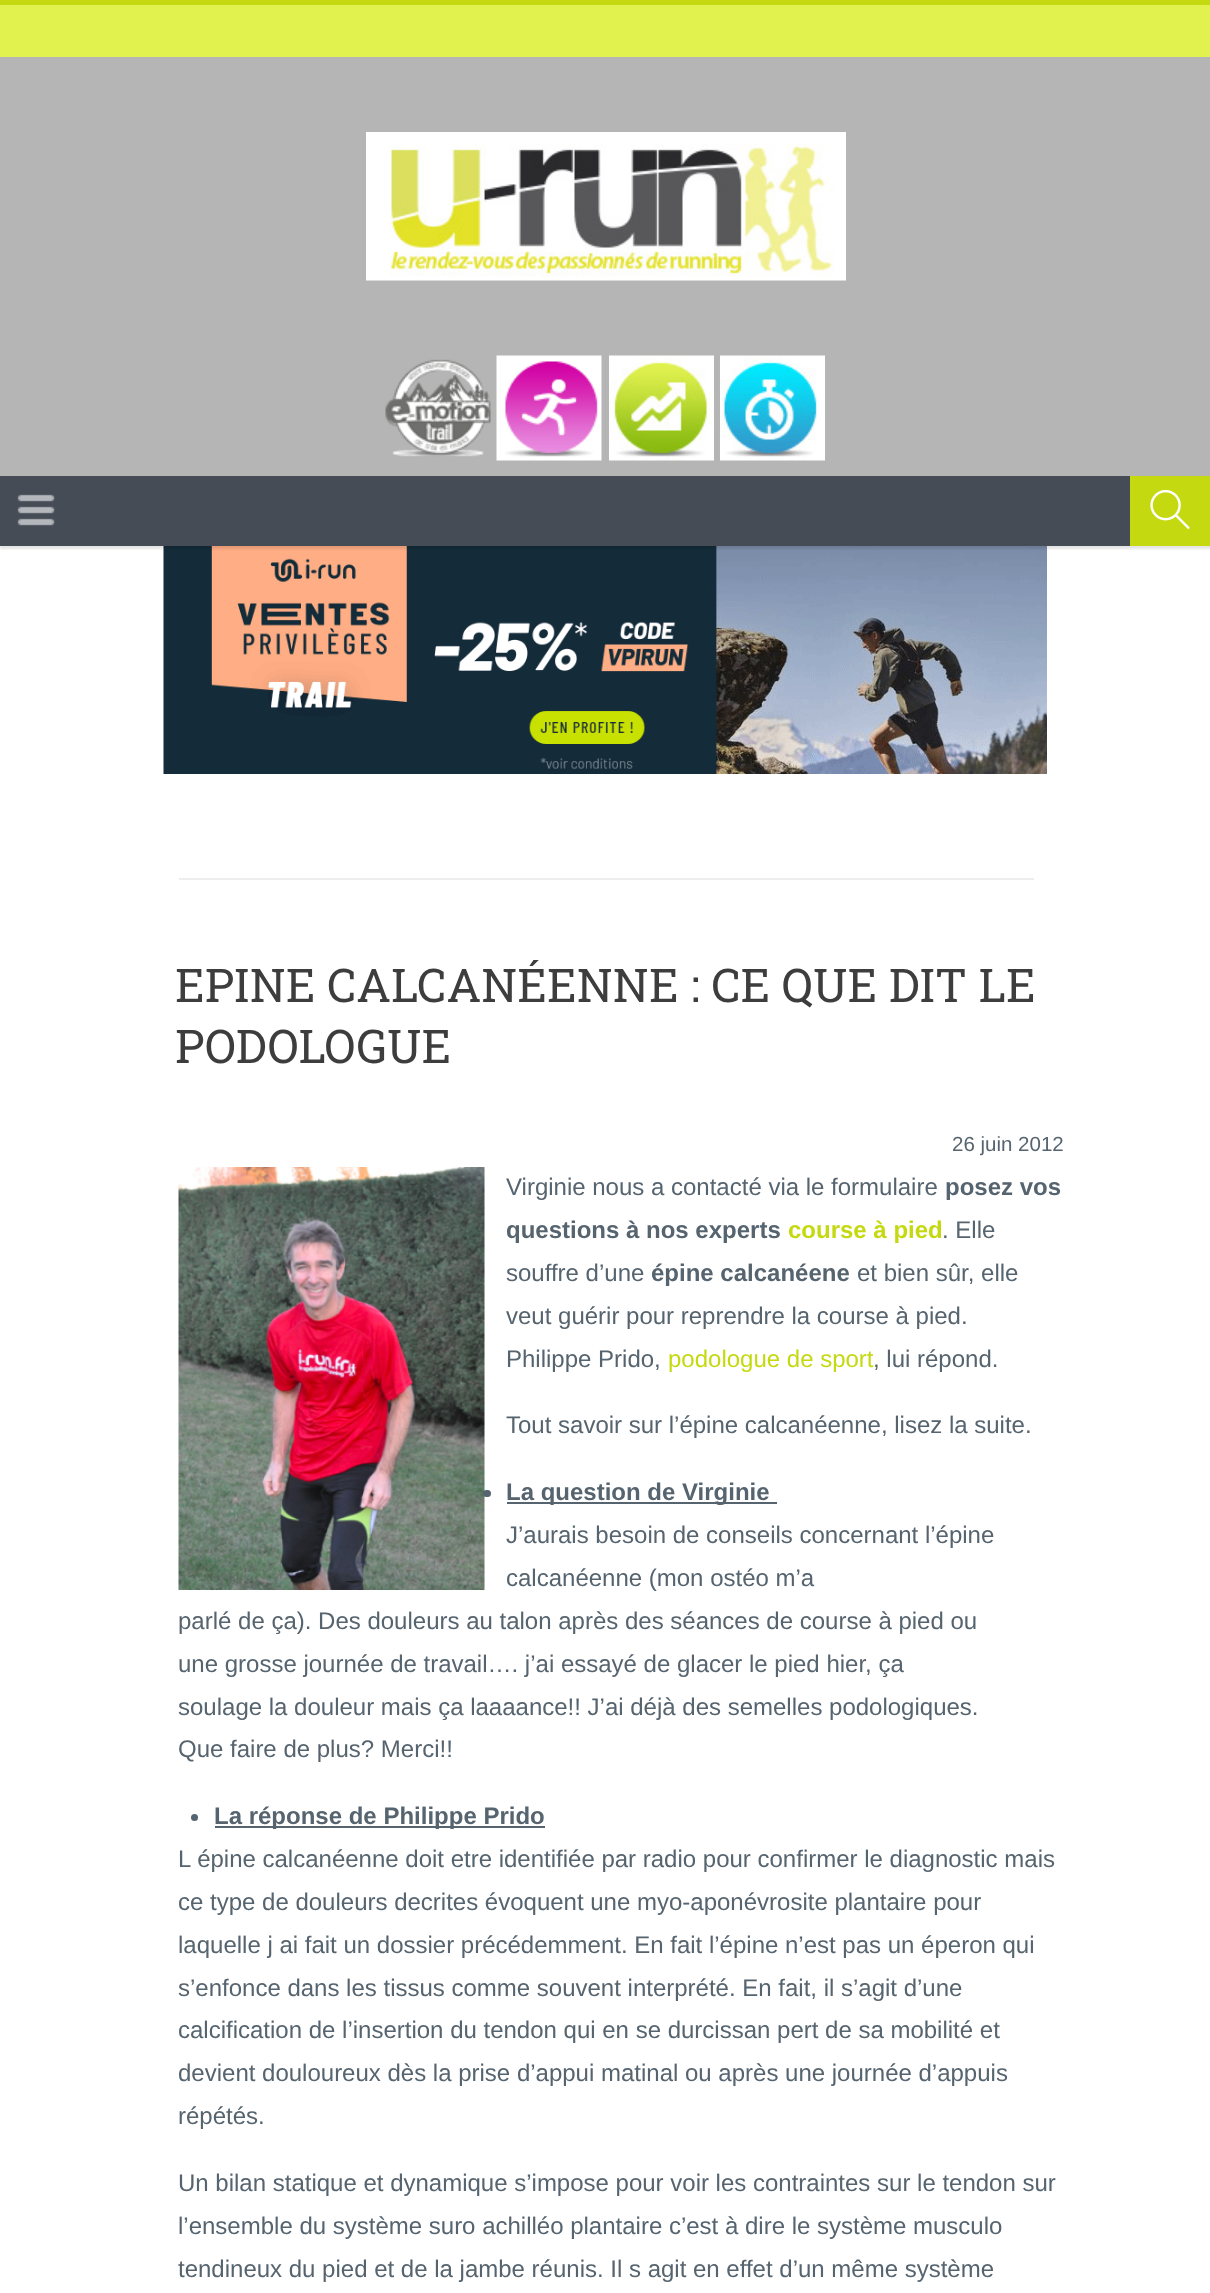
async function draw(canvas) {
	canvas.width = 1210;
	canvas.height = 2293;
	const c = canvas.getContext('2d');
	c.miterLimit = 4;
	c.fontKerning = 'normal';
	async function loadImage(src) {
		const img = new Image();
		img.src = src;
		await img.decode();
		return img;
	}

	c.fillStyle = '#fff';
	c.fillRect(0, 0, 1210, 2293);
	c.drawImage(await loadImage('img1.png'), 0, 57, 1210, 419);
	c.fillStyle = '#e1f24f';
	c.fillRect(0, 5, 1210, 52);
	c.fillStyle = '#c5d911';
	c.fillRect(0, 0, 1210, 5);
	c.drawImage(await loadImage('img2.png'), 366, 132, 480, 149);
	c.drawImage(await loadImage('img3.png'), 385, 359, 106, 98);
	c.drawImage(await loadImage('img4.png'), 496, 355, 106, 106);
	c.drawImage(await loadImage('img5.png'), 609, 355, 105, 106);
	c.drawImage(await loadImage('img6.png'), 720, 355, 105, 106);
	c.drawImage(await loadImage('img9.png'), 163, 546, 884, 228);
	c.fillStyle = '#0000001a';
	c.filter = 'blur(1px)';
	c.beginPath();
	c.rect(0, 479, 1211, 70);
	c.fill();
	c.filter = 'none';
	c.fillStyle = '#454c56';
	c.fillRect(0, 476, 1130, 70);
	c.drawImage(await loadImage('img7.png'), 17, 494, 38, 32);
	c.fillStyle = '#c5d911';
	c.fillRect(1130, 476, 80, 70);
	c.drawImage(await loadImage('img8.png'), 1150, 489, 40, 40);
	c.fillStyle = '#eee';
	c.fillRect(179, 878, 855, 2);
	c.font = '46.5px Roboto Slab';
	c.fillStyle = '#3d3d3d';
	c.fillText('EPINE CALCANÉENNE : CE QUE DIT LE', 175, 1002);
	c.fillText('PODOLOGUE', 175, 1063);
	c.font = '20.5px Liberation Sans';
	c.fillStyle = '#56646f';
	c.fillText('26 juin 2012', 952, 1151);
	c.drawImage(await loadImage('img10.png'), 178, 1167, 307, 423);
	c.font = '24px Liberation Sans';
	c.fillText('Virginie nous a contacté via le formulaire', 506, 1195);
	c.font = 'bold 24px Liberation Sans';
	c.fillText('posez vos', 945, 1195);
	c.fillText('questions à nos experts', 506, 1238);
	c.fillStyle = '#c5d911';
	c.fillText('course à pied', 788, 1238);
	c.font = '24px Liberation Sans';
	c.fillStyle = '#56646f';
	c.fillText('. Elle', 942, 1238);
	c.fillText('souffre d’une', 506, 1281);
	c.font = 'bold 24px Liberation Sans';
	c.fillText('épine calcanéene', 651, 1281);
	c.font = '24px Liberation Sans';
	for (const [text, x, y] of [
		['et bien sûr, elle', 857, 1281],
		['veut guérir pour reprendre la course à pied.', 506, 1324],
		['Philippe Prido,', 506, 1367],
	]) {
		c.fillText(text, x, y);
	}
	c.fillStyle = '#c5d911';
	c.fillText('podologue de sport', 668, 1367);
	c.fillStyle = '#56646f';
	c.fillText(', lui répond.', 873, 1367);
	c.fillText('Tout savoir sur l’épine calcanéenne, lisez la suite.', 506, 1433);
	c.beginPath();
	c.roundRect(483, 1490, 8, 7, 3.5);
	c.fill();
	c.fillRect(507, 1502, 270, 2);
	c.font = 'bold 24px Liberation Sans';
	c.fillText('La question de Virginie', 506, 1500);
	c.font = '24px Liberation Sans';
	for (const [text, x, y] of [
		['J’aurais besoin de conseils concernant l’épine', 506, 1543],
		['calcanéenne (mon ostéo m’a', 506, 1586],
		['parlé de ça). Des douleurs au talon après des séances de course à pied ou', 178, 1629],
		['une grosse journée de travail…. j’ai essayé de glacer le pied hier, ça', 178, 1672],
		['soulage la douleur mais ça laaaance!! J’ai déjà des semelles podologiques.', 178, 1715],
		['Que faire de plus? Merci!!', 178, 1757],
	]) {
		c.fillText(text, x, y);
	}
	c.beginPath();
	c.arc(194.5, 1817.5, 3.5, 0, 2 * Math.PI);
	c.fill();
	c.fillRect(215, 1826, 330, 2);
	c.font = 'bold 24px Liberation Sans';
	c.fillText('La réponse de Philippe Prido', 214, 1824);
	c.font = '24px Liberation Sans';
	for (const [text, x, y] of [
		['L épine calcanéenne doit etre identifiée par radio pour confirmer le diagnostic mais', 178, 1867],
		['ce type de douleurs decrites évoquent une myo-aponévrosite plantaire pour', 178, 1910],
		['laquelle j ai fait un dossier précédemment. En fait l’épine n’est pas un éperon qui', 178, 1953],
		['s’enfonce dans les tissus comme souvent interprété. En fait, il s’agit d’une', 178, 1996],
		['calcification de l’insertion du tendon qui en se durcissan pert de sa mobilité et', 178, 2038],
		['devient douloureux dès la prise d’appui matinal ou après une journée d’appuis', 178, 2081],
		['répétés.', 178, 2124],
		['Un bilan statique et dynamique s’impose pour voir les contraintes sur le tendon sur', 178, 2191],
		['l’ensemble du système suro achilléo plantaire c’est à dire le système musculo', 178, 2234],
		['tendineux du pied et de la jambe réunis. Il s agit en effet d’un même système', 178, 2277],
	]) {
		c.fillText(text, x, y);
	}
}

draw(document.querySelector('canvas'));
